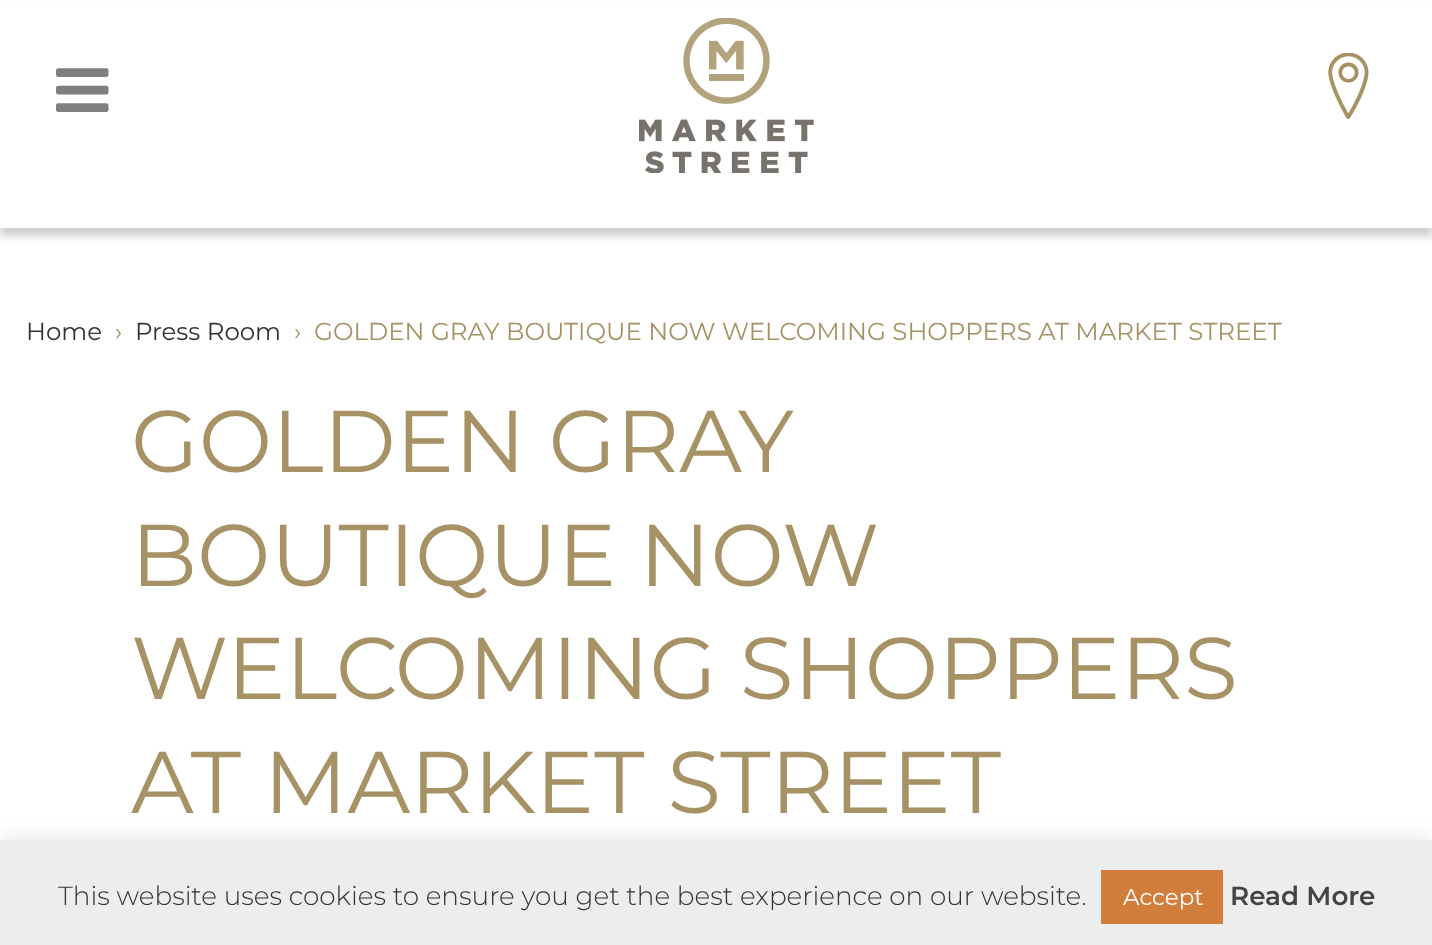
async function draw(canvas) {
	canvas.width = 1432;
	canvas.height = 945;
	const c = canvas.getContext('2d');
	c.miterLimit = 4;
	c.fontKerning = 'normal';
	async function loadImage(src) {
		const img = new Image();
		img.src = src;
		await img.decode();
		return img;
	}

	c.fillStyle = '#fff';
	c.fillRect(0, 0, 1432, 945);
	c.fillStyle = '#00000033';
	c.filter = 'blur(4.5px)';
	c.beginPath();
	c.rect(0, 9, 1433, 227);
	c.fill();
	c.filter = 'none';
	c.fillStyle = '#fff';
	c.fillRect(0, 2, 1432, 226);
	c.drawImage(await loadImage('img1.png'), 639, 18, 175, 155);
	c.drawImage(await loadImage('img2.png'), 56, 68, 53, 44);
	c.drawImage(await loadImage('img3.png'), 1328, 53, 41, 66);
	c.font = '24.5px Montserrat';
	c.fillStyle = '#333';
	c.fillText('Home', 26, 340);
	c.fillStyle = '#a69264';
	c.fillText('›', 115, 340);
	c.fillStyle = '#333';
	c.fillText('Press Room', 135, 340);
	c.fillStyle = '#a69264';
	c.fillText('›', 294, 340);
	c.fillText('GOLDEN GRAY BOUTIQUE NOW WELCOMING SHOPPERS AT MARKET STREET', 314, 340);
	c.font = '87.5px Montserrat';
	for (const [text, x, y] of [
		['GOLDEN GRAY', 131, 472],
		['BOUTIQUE NOW', 131, 586],
		['WELCOMING SHOPPERS', 131, 699],
		['AT MARKET STREET', 131, 813],
	]) {
		c.fillText(text, x, y);
	}
	c.fillStyle = '#acabab4d';
	c.filter = 'blur(9px)';
	c.beginPath();
	c.rect(0, 838, 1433, 105);
	c.fill();
	c.filter = 'none';
	c.fillStyle = '#eceded';
	c.fillRect(0, 840, 1432, 105);
	c.font = '300 26.25px Montserrat';
	c.fillStyle = '#333';
	c.fillText('This website uses cookies to ensure you get the best experience on our website.', 58, 905);
	c.fillStyle = '#d17d3b';
	c.fillRect(1101, 870, 122, 54);
	c.font = '23px Montserrat';
	c.fillStyle = '#fff';
	c.fillText('Accept', 1123, 905);
	c.font = '600 26.25px Montserrat';
	c.fillStyle = '#444';
	c.fillText('Read More', 1230, 905);
}

draw(document.querySelector('canvas'));
